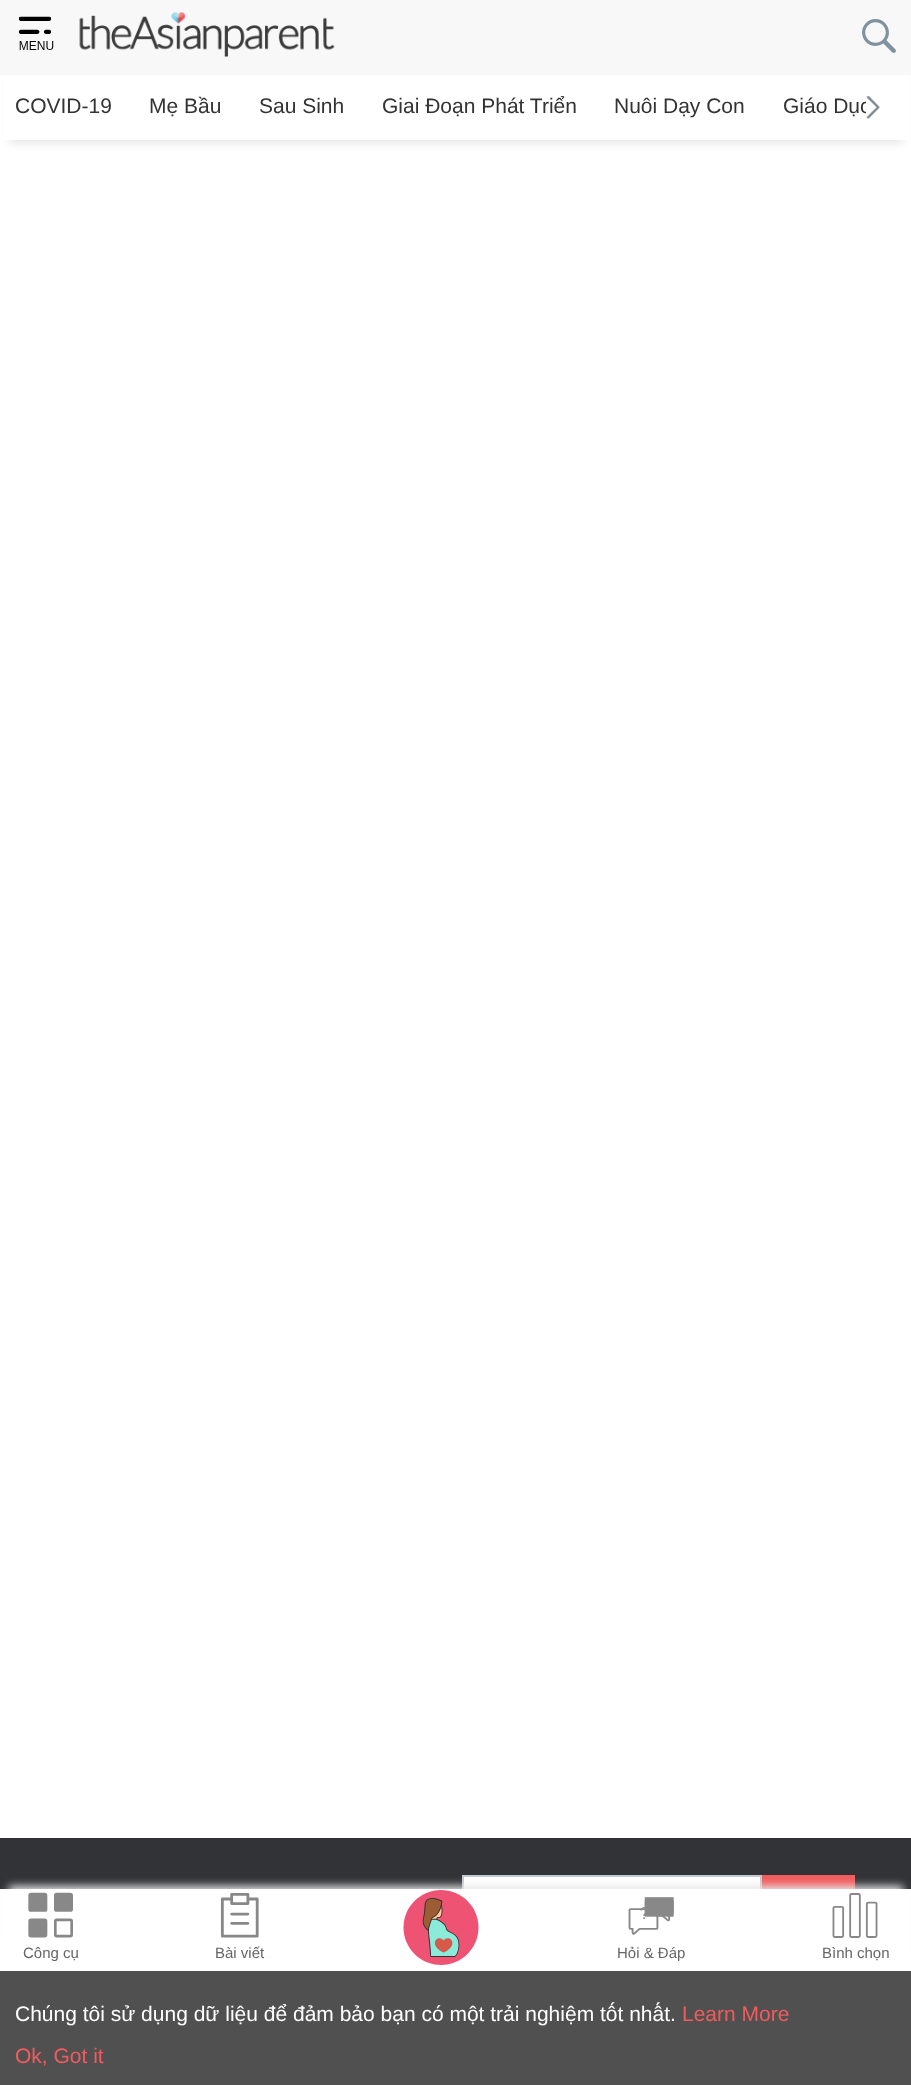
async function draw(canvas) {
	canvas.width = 911;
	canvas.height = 2085;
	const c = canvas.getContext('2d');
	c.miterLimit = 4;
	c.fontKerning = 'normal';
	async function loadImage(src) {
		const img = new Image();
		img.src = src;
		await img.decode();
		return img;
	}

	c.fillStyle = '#fff';
	c.fillRect(0, 0, 911, 2085);
	c.fillStyle = '#0000001a';
	c.filter = 'blur(4.5px)';
	c.beginPath();
	c.rect(9, 21, 894, 122);
	c.fill();
	c.filter = 'none';
	c.fillStyle = '#fff';
	c.fillRect(3, 75, 906, 65);
	c.fillStyle = '#f8f8f8';
	c.fillRect(0, 0, 911, 75);
	c.drawImage(await loadImage('img1.png'), 18, 16, 36, 34);
	c.drawImage(await loadImage('img2.png'), 79, 12, 256, 45);
	c.drawImage(await loadImage('img3.png'), 862, 19, 34, 34);
	c.font = '21px Liberation Sans';
	c.fillStyle = '#333';
	for (const [text, x, y] of [
		['COVID-19', 15, 113],
		['Mẹ Bầu', 149, 113],
		['Sau Sinh', 259, 113],
		['Giai Đoạn Phát Triển', 382, 113],
		['Nuôi Dạy Con', 614, 113],
		['Giáo Dục', 783, 113],
	]) {
		c.fillText(text, x, y);
	}
	c.fillStyle = '#fff';
	c.fillRect(866, 101, 4, 13);
	c.drawImage(await loadImage('img4.png'), 866, 96, 14, 23);
	c.fillStyle = '#313337';
	c.fillRect(0, 1838, 911, 51);
	c.fillStyle = '#fff';
	c.fillRect(464, 1877, 296, 12);
	c.strokeStyle = '#c4c9d3';
	c.lineWidth = 2;
	c.strokeRect(463, 1876, 298, 51);
	c.fillStyle = '#f05c5d';
	c.fillRect(762, 1875, 93, 14);
	c.fillStyle = '#e7e7e7';
	c.filter = 'blur(4.5px)';
	c.beginPath();
	c.rect(9, 1886, 894, 64);
	c.fill();
	c.filter = 'none';
	c.fillStyle = '#fff';
	c.fillRect(3, 1889, 906, 67);
	c.drawImage(await loadImage('img5.png'), 28, 1892, 45, 46);
	c.font = '15px Liberation Sans';
	c.fillStyle = '#666';
	c.fillText('Công cụ', 23, 1958);
	c.drawImage(await loadImage('img6.png'), 220, 1893, 39, 45);
	c.fillText('Bài viết', 215, 1958);
	c.drawImage(await loadImage('img7.png'), 403, 1890, 76, 75);
	c.drawImage(await loadImage('img8.png'), 628, 1897, 46, 38);
	c.fillText('Hỏi & Đáp', 617, 1958);
	c.drawImage(await loadImage('img9.png'), 832, 1893, 46, 45);
	c.fillText('Bình chọn', 822, 1958);
	c.fillStyle = '#505050';
	c.fillRect(0, 1971, 911, 114);
	c.font = '21px Liberation Sans';
	c.fillStyle = '#fff';
	c.fillText('Chúng tôi sử dụng dữ liệu để đảm bảo bạn có một trải nghiệm tốt nhất.', 15, 2021);
	c.fillStyle = '#f05c5d';
	c.fillText('Learn More', 682, 2021);
	c.fillText('Ok, Got it', 15, 2063);
}

draw(document.querySelector('canvas'));
